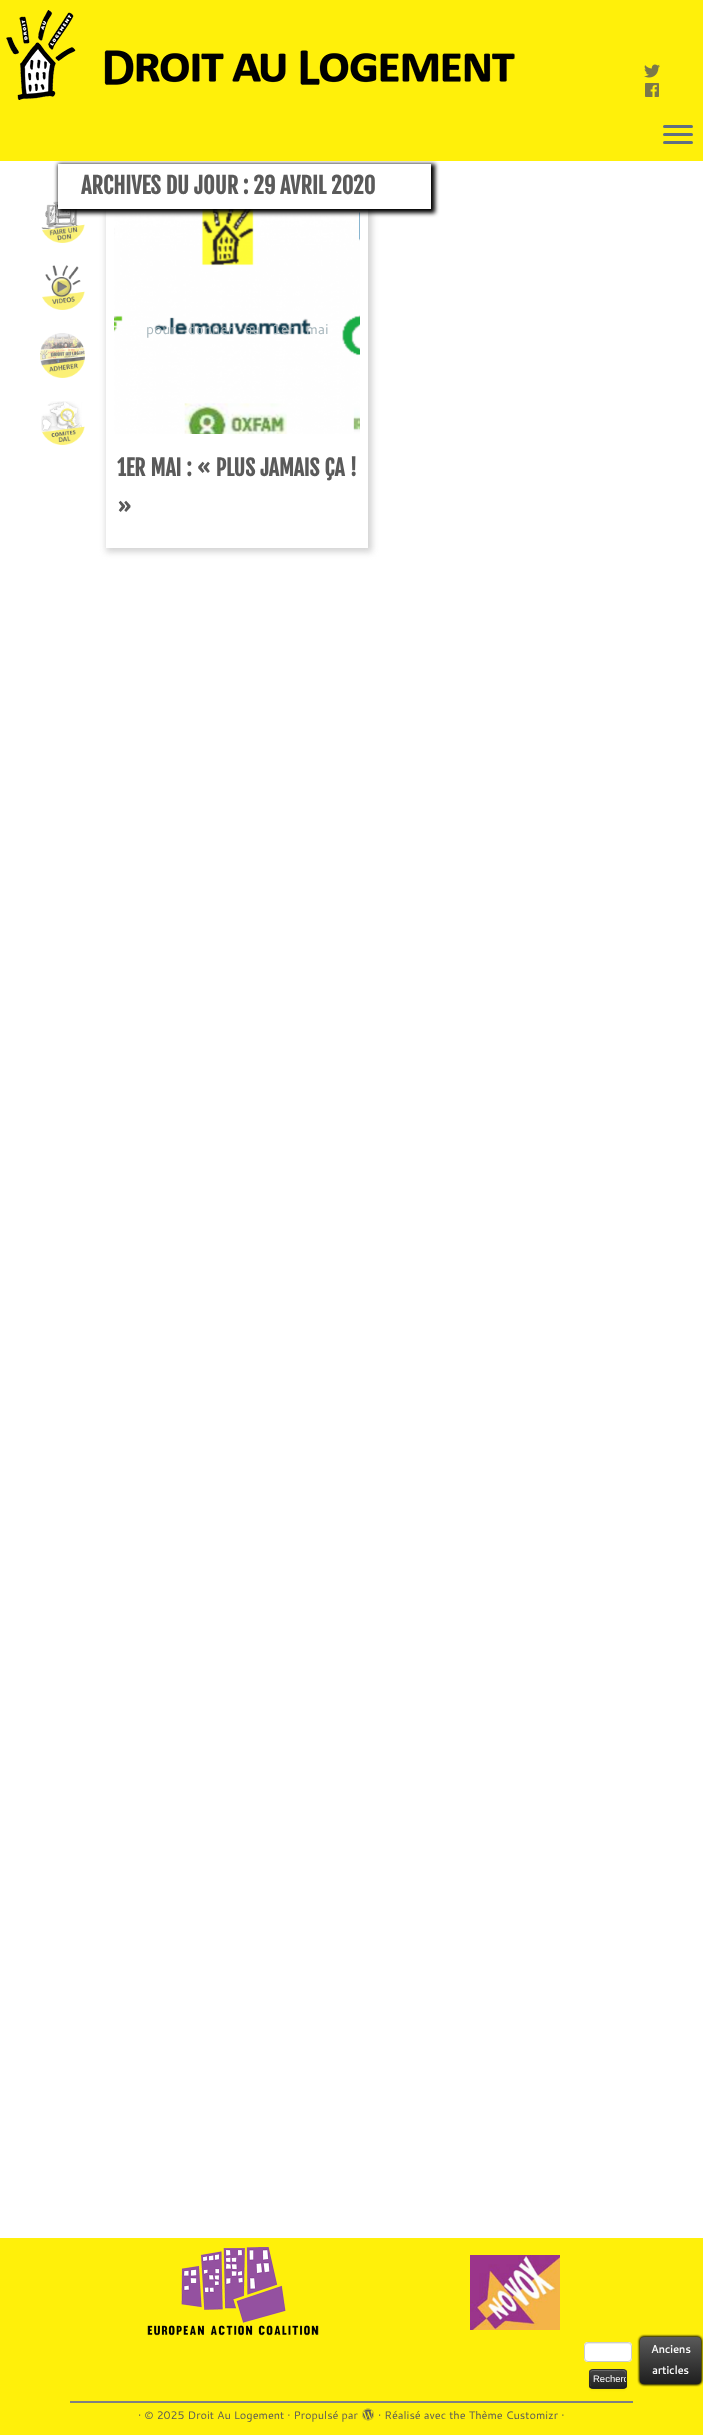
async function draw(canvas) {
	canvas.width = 703;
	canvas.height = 2435;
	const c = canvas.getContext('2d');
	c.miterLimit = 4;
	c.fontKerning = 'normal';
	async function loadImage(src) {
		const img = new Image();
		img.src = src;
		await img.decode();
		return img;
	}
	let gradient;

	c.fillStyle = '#fff';
	c.fillRect(0, 0, 703, 2435);
	c.drawImage(await loadImage('img4.png'), 41, 201, 44, 42);
	c.save();
	c.beginPath();
	c.moveTo(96, 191);
	c.lineTo(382, 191);
	c.lineTo(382, 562);
	c.lineTo(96, 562);
	c.closePath();
	c.moveTo(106, 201);
	c.lineTo(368, 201);
	c.lineTo(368, 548);
	c.lineTo(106, 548);
	c.closePath();
	c.clip('evenodd');
	c.fillStyle = '#d3d3d3';
	c.filter = 'blur(3px)';
	c.beginPath();
	c.rect(106, 201, 266, 351);
	c.fill();
	c.filter = 'none';
	c.restore();
	c.drawImage(await loadImage('img8.png'), 114, 209, 246, 225);
	c.fillStyle = '#000';
	c.filter = 'blur(2px)';
	c.beginPath();
	c.rect(58, 164, 377, 49);
	c.fill();
	c.filter = 'none';
	c.fillStyle = '#fff00a';
	c.fillRect(0, 0, 703, 161);
	c.drawImage(await loadImage('img1.png'), 6, 10, 509, 90);
	c.drawImage(await loadImage('img2.png'), 644, 64, 16, 14);
	c.drawImage(await loadImage('img3.png'), 645, 83, 14, 14);
	c.fillStyle = '#5f6f81';
	c.beginPath();
	c.roundRect(663, 125, 30, 3, 1.5);
	c.fill();
	c.beginPath();
	c.roundRect(663, 133, 30, 3, 1.5);
	c.fill();
	c.beginPath();
	c.roundRect(663, 141, 30, 3, 1.5);
	c.fill();
	c.drawImage(await loadImage('img5.png'), 42, 265, 43, 45);
	c.drawImage(await loadImage('img6.png'), 40, 333, 45, 45);
	c.drawImage(await loadImage('img7.png'), 41, 401, 44, 44);
	c.fillStyle = '#fff';
	c.fillRect(58, 164, 373, 45);
	c.font = 'bold 22.4px Fjalla One';
	c.fillStyle = '#5a5a5a';
	c.fillText('ARCHIVES DU JOUR : 29 AVRIL 2020', 81, 194);
	c.wordSpacing = '8px';
	c.font = '14px Cantarell';
	c.fillStyle = '#a7b6bc';
	c.fillText('pour donner au 1er mai', 146, 334);
	c.wordSpacing = '0.5px';
	c.font = 'bold 21.6px Fjalla One';
	c.fillStyle = '#5a5a5a';
	c.fillText('1ER MAI : « PLUS JAMAIS ÇA !', 117, 476);
	c.wordSpacing = '0px';
	c.fillText('»', 117, 515);
	c.fillStyle = '#fff00a';
	c.fillRect(0, 2238, 703, 197);
	c.drawImage(await loadImage('img9.png'), 147, 2247, 172, 89);
	c.drawImage(await loadImage('img10.png'), 470, 2255, 90, 75);
	c.fillStyle = '#000';
	c.filter = 'blur(1px)';
	c.beginPath();
	c.roundRect(639, 2336, 63, 49, 5);
	c.fill();
	c.filter = 'none';
	gradient = c.createLinearGradient(671, 2337, 671, 2384);
	gradient.addColorStop(0, '#5a5a5a');
	gradient.addColorStop(1, '#1e1e1e');
	c.fillStyle = gradient;
	c.beginPath();
	c.roundRect(640, 2337, 61, 47, 4);
	c.fill();
	c.font = 'bold 11px Cantarell';
	c.fillStyle = '#fafafa';
	c.fillText('Anciens', 651, 2353);
	c.fillText('articles', 652, 2374);
	c.fillStyle = '#fff';
	c.beginPath();
	c.roundRect(584, 2342, 48, 20, 4);
	c.fill();
	c.fillStyle = '#ececec';
	c.beginPath();
	c.moveTo(588, 2344);
	c.lineTo(628, 2344);
	c.bezierCurveTo(630, 2344, 631, 2345, 631, 2347);
	c.bezierCurveTo(631, 2341, 625, 2343, 621, 2343);
	c.lineTo(595, 2343);
	c.bezierCurveTo(589, 2343, 585, 2341, 585, 2347);
	c.bezierCurveTo(585, 2345, 586, 2344, 588, 2344);
	c.closePath();
	c.moveTo(631, 2351);
	c.lineTo(631, 2360);
	c.bezierCurveTo(632, 2357, 631, 2353, 631, 2351);
	c.closePath();
	c.fill('evenodd');
	c.beginPath();
	c.roundRect(584.5, 2342.5, 47, 19, 3.5);
	c.strokeStyle = '#ccc';
	c.stroke();
	c.fillStyle = '#0000000d';
	c.filter = 'blur(1px)';
	c.beginPath();
	c.roundRect(589, 2370, 38, 20, 4);
	c.fill();
	c.filter = 'none';
	c.fillStyle = '#363636';
	c.beginPath();
	c.roundRect(589, 2369, 38, 20, 4);
	c.fill();
	c.save();
	c.beginPath();
	c.roundRect(589, 2369, 38, 20, 4);
	c.clip();
	gradient = c.createLinearGradient(608, 2370, 608, 2388);
	gradient.addColorStop(0, '#444');
	gradient.addColorStop(1, '#222');
	c.fillStyle = gradient;
	c.fillRect(589, 2370, 38, 18);
	c.restore();
	c.fillStyle = '#ffffff33';
	c.beginPath();
	c.moveTo(593, 2371);
	c.lineTo(614, 2371);
	c.lineTo(622, 2370.5);
	c.lineTo(624.5, 2371.5);
	c.bezierCurveTo(626, 2372.5, 626, 2376, 626, 2378);
	c.lineTo(626, 2373);
	c.bezierCurveTo(626, 2371.5, 624.5, 2370, 623, 2370);
	c.lineTo(593, 2370);
	c.bezierCurveTo(591.5, 2370, 590, 2371.5, 590, 2373);
	c.bezierCurveTo(590.5, 2372, 591.5, 2371, 593, 2371);
	c.closePath();
	c.moveTo(590.5, 2386.5);
	c.lineTo(590, 2382);
	c.bezierCurveTo(590, 2383.5, 589.5, 2385, 590.5, 2386.5);
	c.closePath();
	c.fill('evenodd');
	c.beginPath();
	c.moveTo(625.5, 2387.5);
	c.bezierCurveTo(625, 2388, 624, 2388.5, 623, 2388.5);
	c.lineTo(593, 2388.5);
	c.bezierCurveTo(592, 2388.5, 591, 2388, 590.5, 2387.5);
	c.strokeStyle = '#00000040';
	c.stroke();
	c.beginPath();
	c.moveTo(590.5, 2387.5);
	c.bezierCurveTo(588.5, 2385.5, 589.5, 2381, 589.5, 2379);
	c.bezierCurveTo(589.5, 2370, 588.5, 2369.5, 598, 2369.5);
	c.lineTo(618, 2369.5);
	c.bezierCurveTo(627.5, 2369.5, 626.5, 2370, 626.5, 2379);
	c.bezierCurveTo(626.5, 2381, 627.5, 2385.5, 625.5, 2387.5);
	c.strokeStyle = '#0000001a';
	c.stroke();
	c.save();
	c.beginPath();
	c.roundRect(590, 2370, 36, 18, 3);
	c.clip();
	c.font = '9.5px Liberation Sans';
	c.fillStyle = '#fafafa';
	c.fillText('Recherc', 593, 2382);
	c.restore();
	c.fillStyle = '#808080';
	c.fillRect(70, 2401, 563, 2);
	c.font = '11px Cantarell';
	c.fillStyle = '#5a5a5a';
	c.fillText('· © 2025 Droit Au Logement · Propulsé par', 138, 2419);
	c.drawImage(await loadImage('img11.png'), 362, 2408, 12, 13);
	c.fillText('· Réalisé avec the Thème Customizr ·', 378, 2419);
}

draw(document.querySelector('canvas'));
